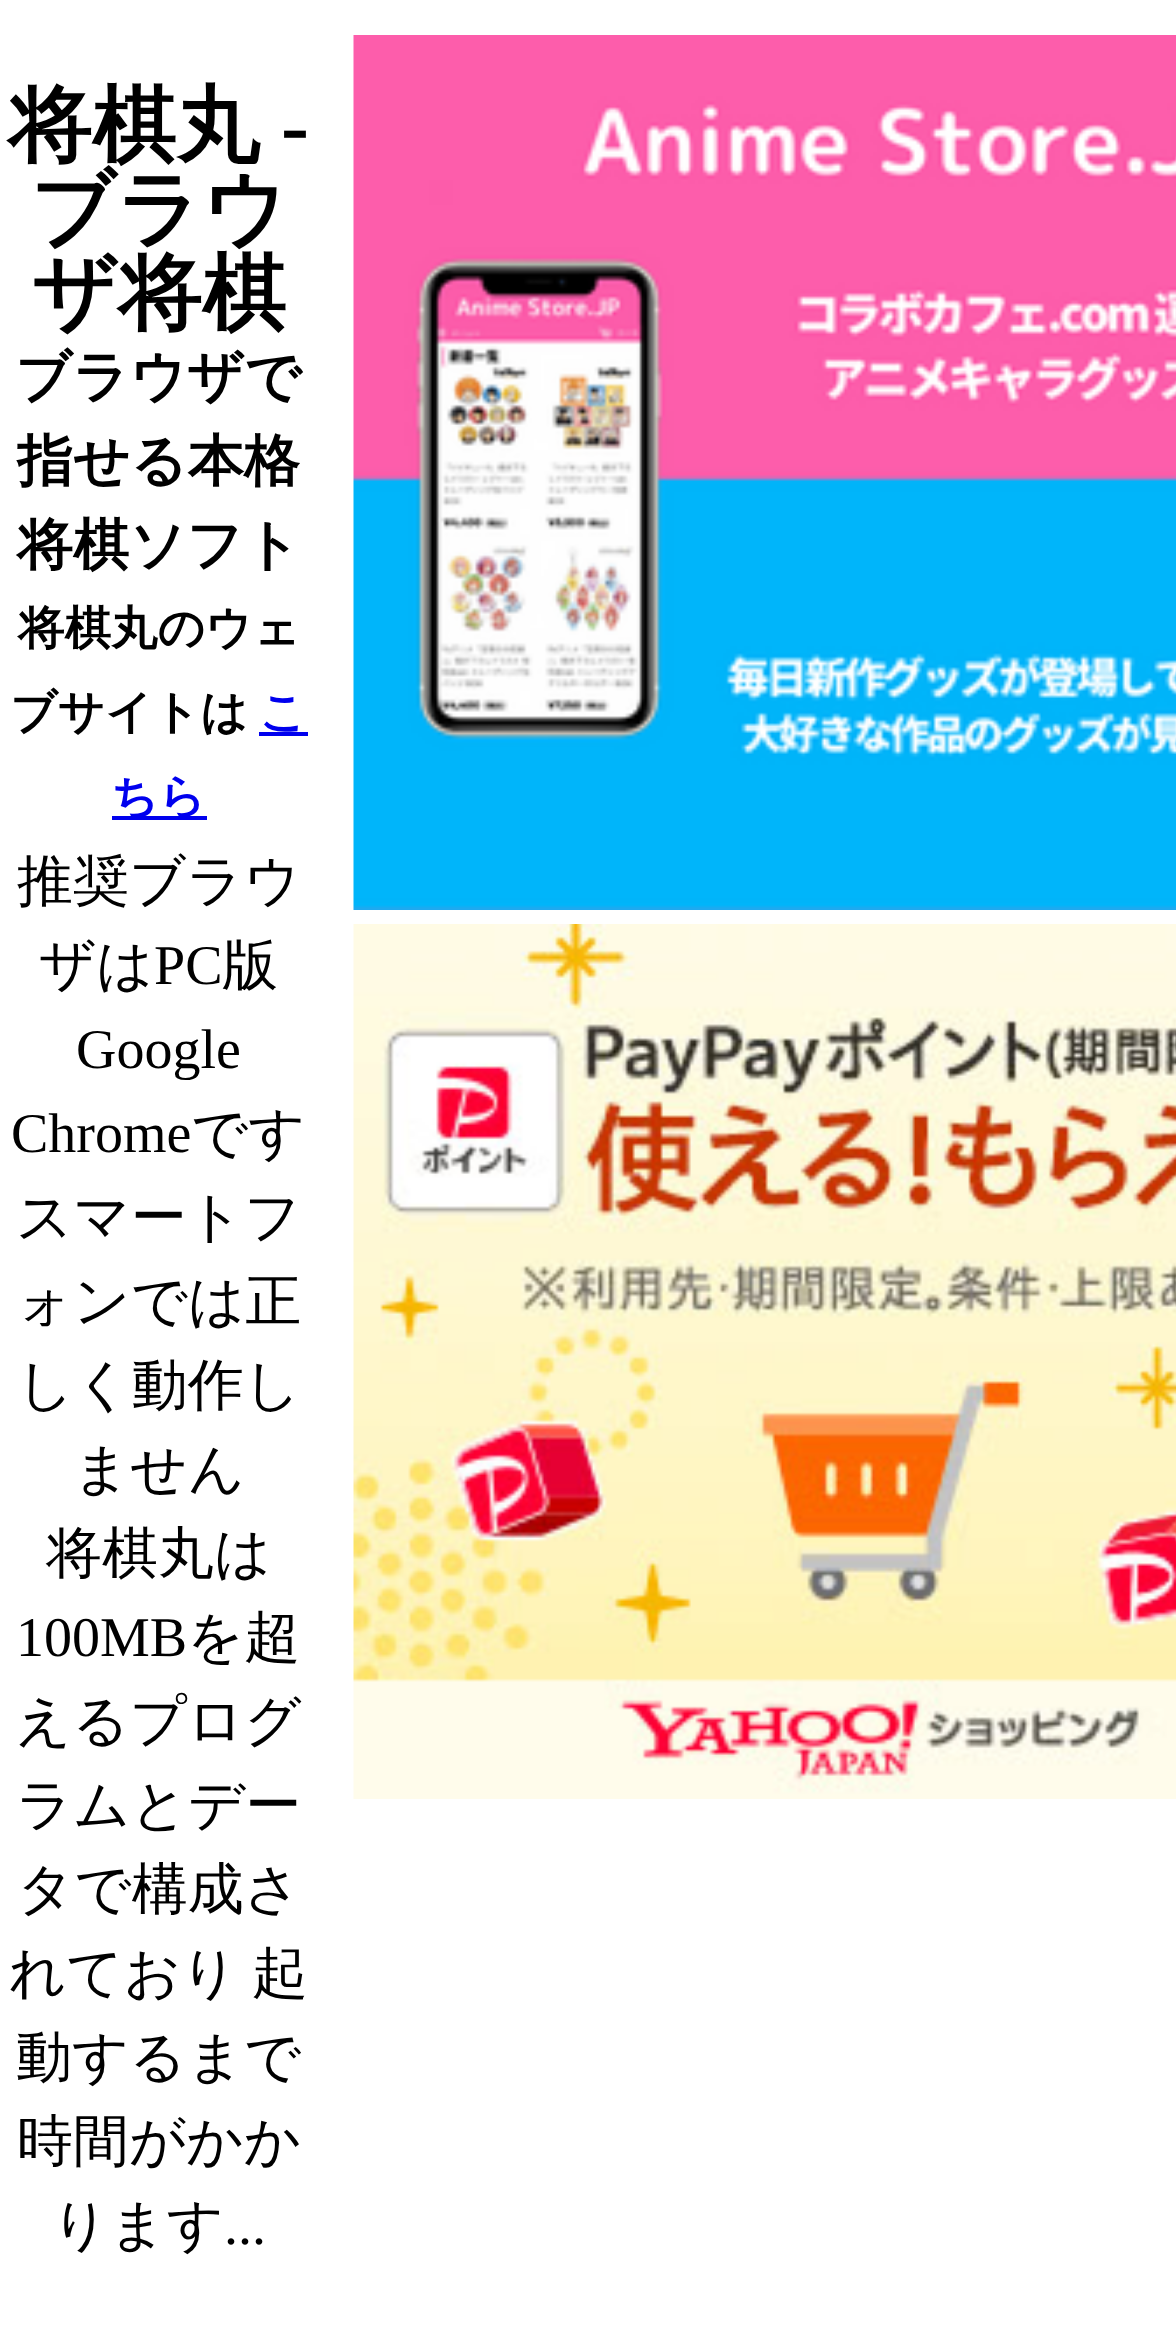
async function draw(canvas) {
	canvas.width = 1176;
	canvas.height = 2348;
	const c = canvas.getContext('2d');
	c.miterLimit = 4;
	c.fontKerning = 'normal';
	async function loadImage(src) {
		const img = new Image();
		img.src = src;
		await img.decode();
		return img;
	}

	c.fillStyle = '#fff';
	c.fillRect(0, 0, 1176, 2348);
	c.font = 'bold 84px WenQuanYi Zen Hei';
	c.fillStyle = '#000';
	c.fillText('将棋丸', 8, 154);
	c.font = 'bold 84px Liberation Serif';
	c.fillText('-', 281, 154);
	c.font = 'bold 84px WenQuanYi Zen Hei';
	c.fillText('ブラウ', 30, 238);
	c.fillText('ザ将棋', 32, 322);
	c.font = 'bold 56px WenQuanYi Zen Hei';
	for (const [text, x, y] of [
		['ブラウザで', 15, 396],
		['指せる本格', 17, 480],
		['将棋ソフト', 17, 564],
	]) {
		c.fillText(text, x, y);
	}
	c.font = 'bold 46.5px WenQuanYi Zen Hei';
	c.fillText('将棋丸のウェ', 18, 644);
	c.fillText('ブサイトは', 10, 728);
	c.fillStyle = '#00e';
	c.fillText('こ', 259, 728);
	c.fillRect(259, 732, 49, 4);
	c.fillRect(112, 816, 95, 4);
	c.fillText('ちら', 111, 812);
	c.font = '500 56px WenQuanYi Zen Hei';
	c.fillStyle = '#000';
	c.fillText('推奨ブラウ', 17, 900);
	c.fillText('ザは', 39, 984);
	c.font = '56px Liberation Serif';
	c.fillText('PC', 154, 984);
	c.font = '500 56px WenQuanYi Zen Hei';
	c.fillText('版', 222, 984);
	c.font = '56px Liberation Serif';
	c.fillText('Google', 76, 1068);
	c.fillText('Chrome', 11, 1152);
	c.font = '500 56px WenQuanYi Zen Hei';
	for (const [text, x, y] of [
		['です', 191, 1152],
		['スマートフ', 16, 1236],
		['ォンでは正', 16, 1320],
		['しく動作し', 17, 1404],
		['ません', 73, 1488],
		['将棋丸は', 46, 1572],
	]) {
		c.fillText(text, x, y);
	}
	c.font = '56px Liberation Serif';
	c.fillText('100MB', 16, 1656);
	c.font = '500 56px WenQuanYi Zen Hei';
	for (const [text, x, y] of [
		['を超', 187, 1656],
		['えるプログ', 15, 1740],
		['ラムとデー', 16, 1824],
		['タで構成さ', 17, 1908],
	]) {
		c.fillText(text, x, y);
	}
	c.wordSpacing = '-3px';
	c.fillText('れており 起', 9, 1992);
	c.wordSpacing = '0px';
	for (const [text, x, y] of [
		['動するまで', 16, 2076],
		['時間がかか', 17, 2160],
		['ります', 52, 2244],
	]) {
		c.fillText(text, x, y);
	}
	c.font = '56px Liberation Serif';
	c.fillText('...', 224, 2244);
	c.drawImage(await loadImage('img1.png'), 353, 35, 823, 875);
	c.drawImage(await loadImage('img2.png'), 353, 924, 823, 875);
}

draw(document.querySelector('canvas'));
